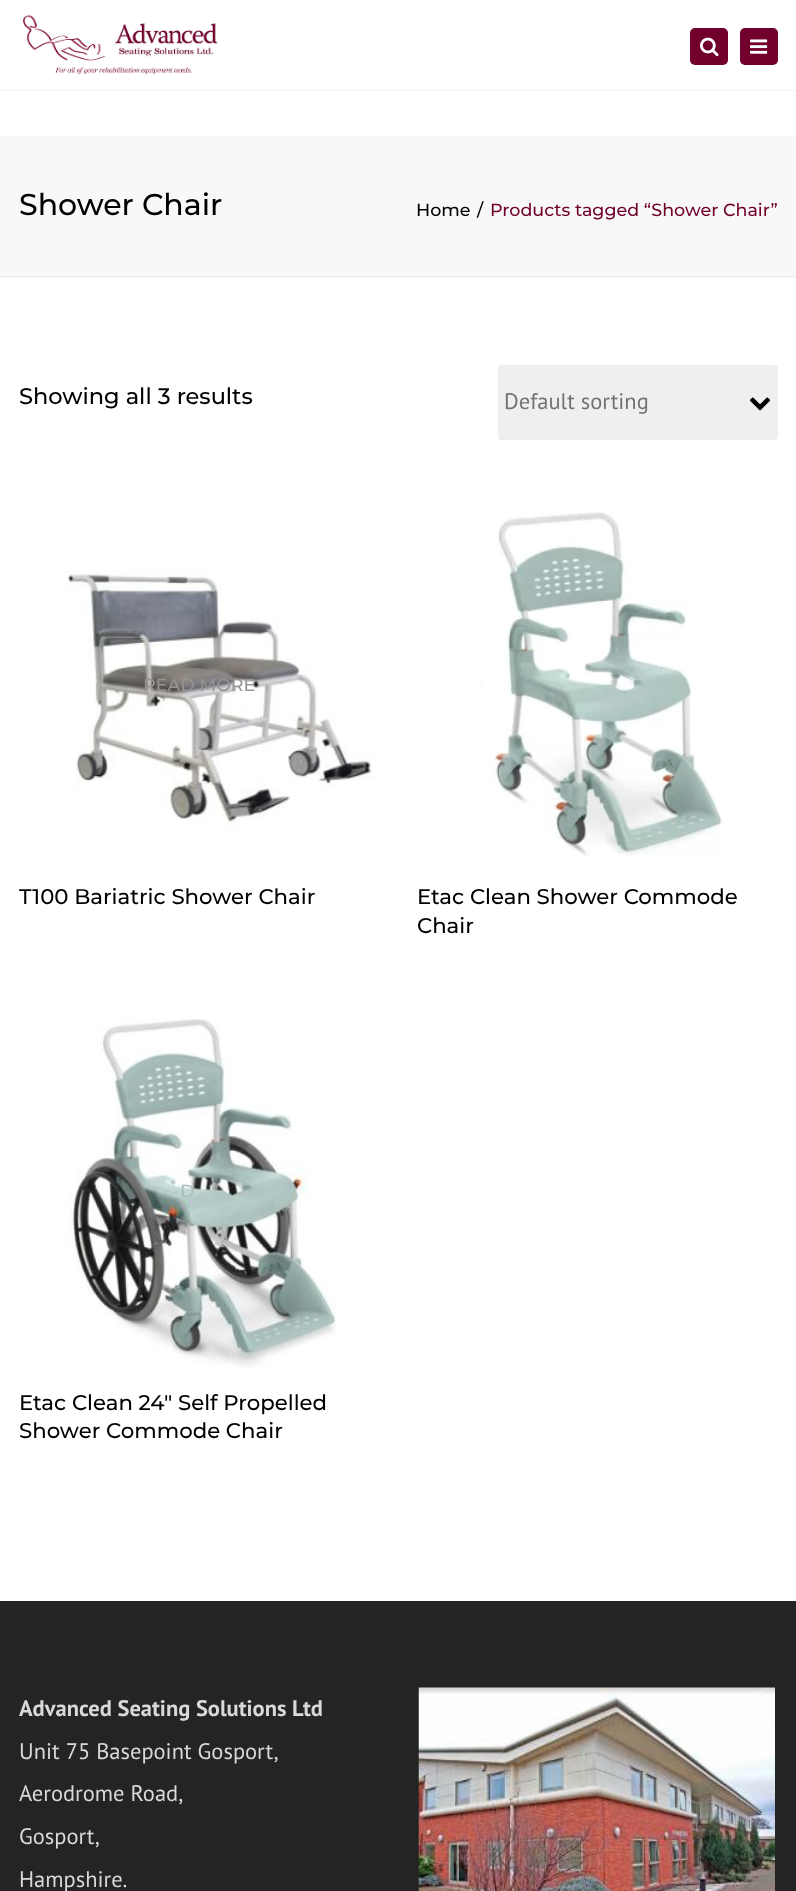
async function draw(canvas) {
	canvas.width = 796;
	canvas.height = 1891;
	const c = canvas.getContext('2d');
	c.miterLimit = 4;
	c.fontKerning = 'normal';
	async function loadImage(src) {
		const img = new Image();
		img.src = src;
		await img.decode();
		return img;
	}

	c.fillStyle = '#fff';
	c.fillRect(0, 0, 796, 1891);
	c.drawImage(await loadImage('img1.png'), 22, 15, 196, 60);
	c.fillStyle = '#f2f2f2';
	c.fillRect(0, 90, 796, 1);
	c.fillStyle = '#71002d';
	c.beginPath();
	c.roundRect(690, 28, 38, 37, 5);
	c.fill();
	c.drawImage(await loadImage('img2.png'), 700, 37, 19, 20);
	c.beginPath();
	c.roundRect(740, 28, 38, 37, 5);
	c.fill();
	c.drawImage(await loadImage('img3.png'), 750, 39, 18, 15);
	c.fillStyle = '#f8f8f8';
	c.fillRect(0, 136, 796, 142);
	c.fillStyle = '#ededed';
	c.fillRect(0, 276, 796, 1);
	c.font = '500 30px Montserrat';
	c.fillStyle = '#000';
	c.fillText('Shower Chair', 19, 215);
	c.font = '500 17.5px Montserrat';
	c.fillText('Home', 416, 216);
	c.fillText('/', 477, 216);
	c.fillStyle = '#71002d';
	c.fillText('Products tagged “Shower Chair”', 490, 216);
	c.font = '500 22.5px Montserrat';
	c.fillStyle = '#000';
	c.fillText('Showing all 3 results', 19, 404);
	c.fillStyle = '#efefef';
	c.beginPath();
	c.roundRect(498, 365, 280, 75, 4);
	c.fill();
	c.fillStyle = '#ebebeb';
	c.fillRect(500, 439, 276, 1);
	c.font = '22.5px PT Sans';
	c.fillStyle = '#727272';
	c.fillText('Default sorting', 504, 409);
	c.drawImage(await loadImage('img4.png'), 749, 397, 22, 14);
	c.drawImage(await loadImage('img5.png'), 67, 570, 308, 258);
	c.font = '500 17.5px Montserrat';
	c.fillStyle = '#969393';
	c.fillText('READ MORE', 143, 691);
	c.font = '500 21.25px Montserrat';
	c.fillStyle = '#000';
	c.fillText('T100 Bariatric Shower Chair', 19, 904);
	c.drawImage(await loadImage('img6.png'), 481, 512, 242, 345);
	c.fillText('Etac Clean Shower Commode', 417, 904);
	c.fillText('Chair', 417, 933);
	c.drawImage(await loadImage('img7.png'), 67, 1019, 269, 349);
	c.font = '500 17.5px Montserrat';
	c.fillStyle = '#acbcba';
	c.fillText('D', 180, 1197);
	c.font = '500 21.25px Montserrat';
	c.fillStyle = '#000';
	c.fillText('Etac Clean 24″ Self Propelled', 19, 1410);
	c.fillText('Shower Commode Chair', 19, 1438);
	c.fillStyle = '#242424';
	c.fillRect(0, 1601, 796, 290);
	c.font = 'bold 22.5px PT Sans';
	c.fillStyle = '#d9d9d9';
	c.fillText('Advanced Seating Solutions Ltd', 19, 1716);
	c.font = '22.5px PT Sans';
	for (const [text, x, y] of [
		['Unit 75 Basepoint Gosport,', 19, 1759],
		['Aerodrome Road,', 19, 1801],
		['Gosport,', 19, 1844],
		['Hampshire.', 19, 1887],
	]) {
		c.fillText(text, x, y);
	}
	c.drawImage(await loadImage('img8.png'), 418, 1687, 357, 204);
}

draw(document.querySelector('canvas'));
